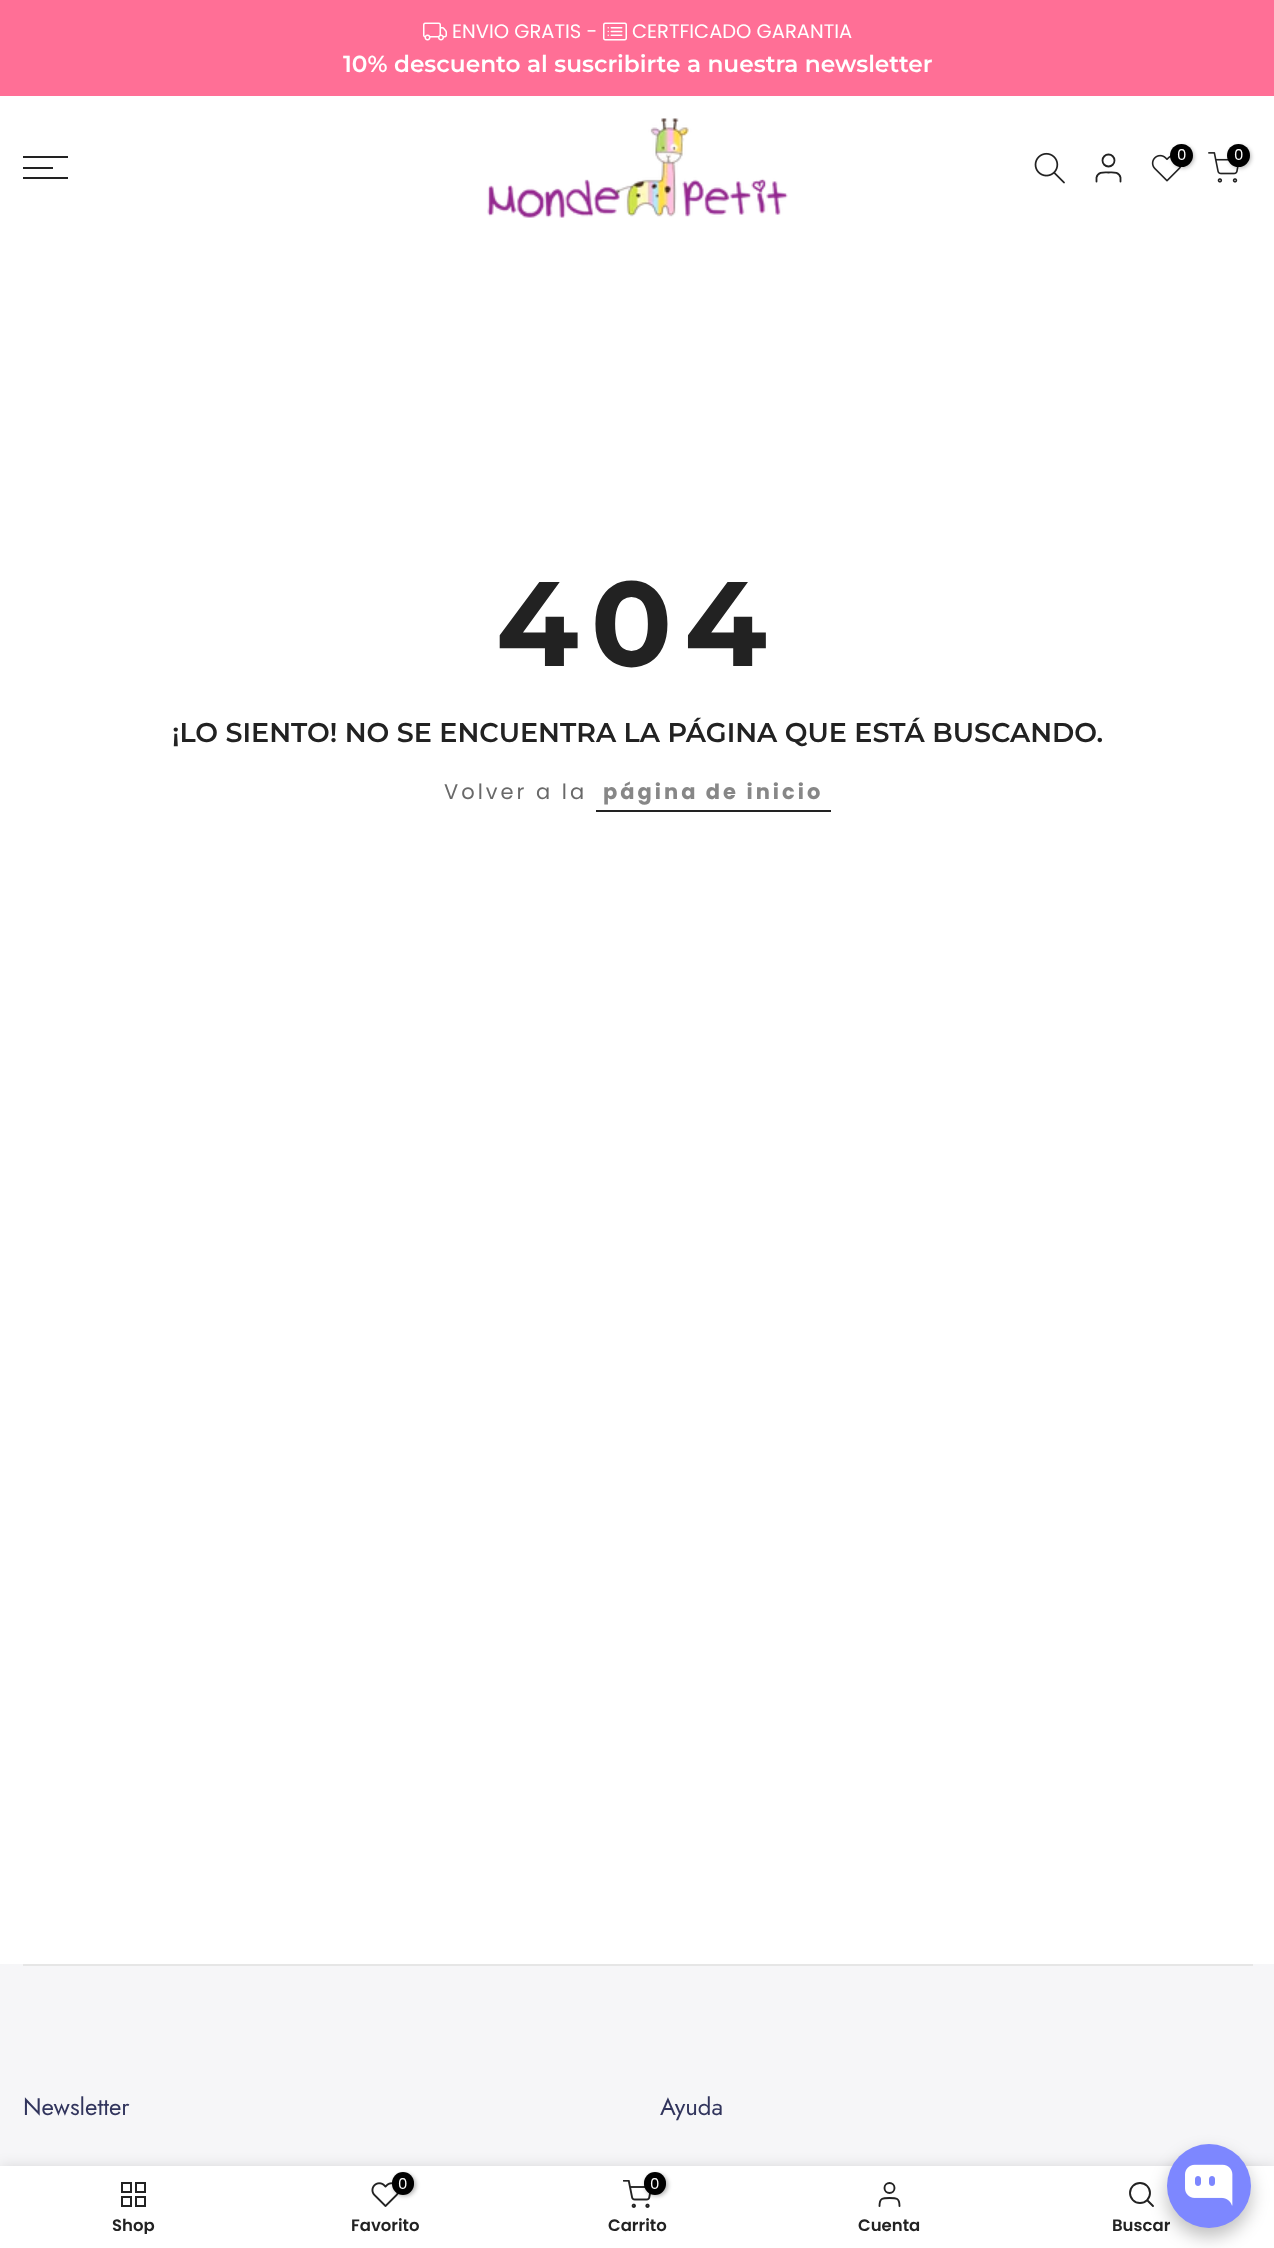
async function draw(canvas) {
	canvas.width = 1274;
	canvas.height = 2248;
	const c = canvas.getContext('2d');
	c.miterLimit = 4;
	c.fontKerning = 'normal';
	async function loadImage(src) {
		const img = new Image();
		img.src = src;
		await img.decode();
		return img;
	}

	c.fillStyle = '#fff';
	c.fillRect(0, 0, 1274, 2248);
	c.fillStyle = '#ff6f96';
	c.fillRect(0, 0, 1274, 96);
	c.drawImage(await loadImage('img1.png'), 423, 22, 24, 19);
	c.font = '19.5px Poppins';
	c.fillStyle = '#fff';
	c.fillText('ENVIO GRATIS -', 452, 38);
	c.drawImage(await loadImage('img2.png'), 603, 22, 24, 19);
	c.fillText('CERTFICADO GARANTIA', 632, 38);
	c.font = '600 23.25px Montserrat';
	c.fillText('10% descuento al suscribirte a nuestra newsletter', 343, 72);
	c.drawImage(await loadImage('img3.png'), 487, 118, 301, 100);
	c.drawImage(await loadImage('img4.png'), 1034, 152, 31, 32);
	c.beginPath();
	c.arc(1108.5, 160.5, 6, 0, 2 * Math.PI);
	c.strokeStyle = '#222';
	c.lineWidth = 1.8;
	c.stroke();
	c.beginPath();
	c.moveTo(1120.5, 181.5);
	c.lineTo(1120.5, 177.5);
	c.bezierCurveTo(1119, 171.5, 1113, 172.5, 1108.5, 172.5);
	c.bezierCurveTo(1104, 172.5, 1098, 171.5, 1096.5, 177.5);
	c.lineTo(1096.5, 181.5);
	c.lineCap = 'round';
	c.lineJoin = 'round';
	c.stroke();
	c.drawImage(await loadImage('img5.png'), 1151, 154, 31, 28);
	c.fillStyle = '#0000004d';
	c.filter = 'blur(2px)';
	c.beginPath();
	c.roundRect(1172, 146, 22, 22, 11);
	c.fill();
	c.filter = 'none';
	c.fillStyle = '#000';
	c.beginPath();
	c.arc(1181.5, 155.5, 11.5, 0, 2 * Math.PI);
	c.fill();
	c.font = '15px Poppins';
	c.fillStyle = '#fff';
	c.fillText('0', 1177, 160);
	c.drawImage(await loadImage('img6.png'), 1208, 152, 31, 31);
	c.fillStyle = '#0000004d';
	c.filter = 'blur(2px)';
	c.beginPath();
	c.roundRect(1229, 146, 22, 22, 11);
	c.fill();
	c.filter = 'none';
	c.fillStyle = '#000';
	c.beginPath();
	c.arc(1238.5, 155.5, 11.5, 0, 2 * Math.PI);
	c.fill();
	c.fillStyle = '#fff';
	c.fillText('0', 1234, 160);
	for (const [x, y, w, h, color] of [
		[23, 156, 45, 2, '#222'],
		[23, 167, 30, 2, '#222'],
		[23, 177, 45, 2, '#222'],
	]) {
		c.fillStyle = color;
		c.fillRect(x, y, w, h);
	}
	c.letterSpacing = '12px';
	c.font = 'bold 120px Montserrat';
	c.fillText('404', 496, 666);
	c.letterSpacing = '0px';
	c.font = '600 27px Montserrat';
	c.fillText('¡LO SIENTO! NO SE ENCUENTRA LA PÁGINA QUE ESTÁ BUSCANDO.', 172, 742);
	c.letterSpacing = '3px';
	c.font = '21px Poppins';
	c.fillStyle = '#696969';
	c.fillText('Volver a la', 444, 799);
	c.font = 'bold 21px Poppins';
	c.fillStyle = '#878787';
	c.fillText('página de inicio', 603, 799);
	for (const [x, y, w, h, color] of [
		[596, 810, 235, 2, '#222'],
		[0, 1964, 1274, 202, '#f6f6f8'],
		[23, 1964, 1230, 2, '#e6e6e6'],
	]) {
		c.fillStyle = color;
		c.fillRect(x, y, w, h);
	}
	c.letterSpacing = '0px';
	c.font = '24px Jost';
	c.fillStyle = '#32355d';
	c.fillText('Newsletter', 23, 2115);
	c.fillText('Ayuda', 660, 2115);
	c.fillStyle = '#0000001f';
	c.filter = 'blur(7px)';
	c.beginPath();
	c.rect(0, 2166, 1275, 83);
	c.fill();
	c.filter = 'none';
	c.fillStyle = '#fff';
	c.fillRect(0, 2166, 1274, 82);
	c.lineWidth = 2;
	c.lineJoin = 'miter';
	c.strokeRect(122, 2183, 9, 9);
	c.strokeRect(136, 2183, 9, 9);
	c.strokeRect(122, 2197, 9, 9);
	c.strokeRect(136, 2197, 9, 9);
	c.save();
	c.beginPath();
	c.rect(23, 2217, 222, 17);
	c.clip();
	c.font = '600 16.5px Poppins';
	c.fillStyle = '#222';
	c.fillText('Shop', 112, 2231);
	c.restore();
	c.drawImage(await loadImage('img7.png'), 371, 2182, 28, 25);
	c.fillStyle = '#0000004d';
	c.filter = 'blur(2px)';
	c.beginPath();
	c.roundRect(393, 2174, 23, 22, 11);
	c.fill();
	c.filter = 'none';
	c.fillStyle = '#000';
	c.beginPath();
	c.roundRect(392, 2172, 22, 23, 11);
	c.fill();
	c.font = '15px Poppins';
	c.fillStyle = '#fff';
	c.fillText('0', 398, 2189);
	c.font = '600 16.5px Poppins';
	c.fillStyle = '#222';
	c.fillText('Favorito', 351, 2231);
	c.drawImage(await loadImage('img8.png'), 623, 2180, 28, 28);
	c.fillStyle = '#0000004d';
	c.filter = 'blur(2px)';
	c.beginPath();
	c.roundRect(645, 2174, 23, 22, 11);
	c.fill();
	c.filter = 'none';
	c.fillStyle = '#000';
	c.beginPath();
	c.roundRect(644, 2172, 22, 23, 11);
	c.fill();
	c.font = '15px Poppins';
	c.fillStyle = '#fff';
	c.fillText('0', 650, 2189);
	c.font = '600 16.5px Poppins';
	c.fillStyle = '#222';
	c.fillText('Carrito', 608, 2231);
	c.beginPath();
	c.arc(889.5, 2188, 5, 0, 2 * Math.PI);
	c.lineWidth = 1.9;
	c.stroke();
	c.beginPath();
	c.moveTo(899.5, 2206);
	c.bezierCurveTo(899.5, 2198, 896.5, 2198, 889.5, 2198);
	c.bezierCurveTo(882.5, 2198, 879.5, 2198, 879.5, 2206);
	c.lineJoin = 'round';
	c.stroke();
	c.fillText('Cuenta', 858, 2231);
	c.beginPath();
	c.arc(1140, 2193, 10, 0, 2 * Math.PI);
	c.stroke();
	c.beginPath();
	c.moveTo(1153, 2206);
	c.lineTo(1147.5, 2200.5);
	c.stroke();
	c.fillText('Buscar', 1112, 2231);
	c.fillStyle = '#00000040';
	c.filter = 'blur(9px)';
	c.beginPath();
	c.roundRect(1167, 2153, 84, 84, 42);
	c.fill();
	c.filter = 'none';
	c.fillStyle = '#7d87ff';
	c.beginPath();
	c.arc(1209, 2186, 42, 0, 2 * Math.PI);
	c.fill();
	c.drawImage(await loadImage('img9.png'), 1185, 2164, 48, 42);
}

draw(document.querySelector('canvas'));
